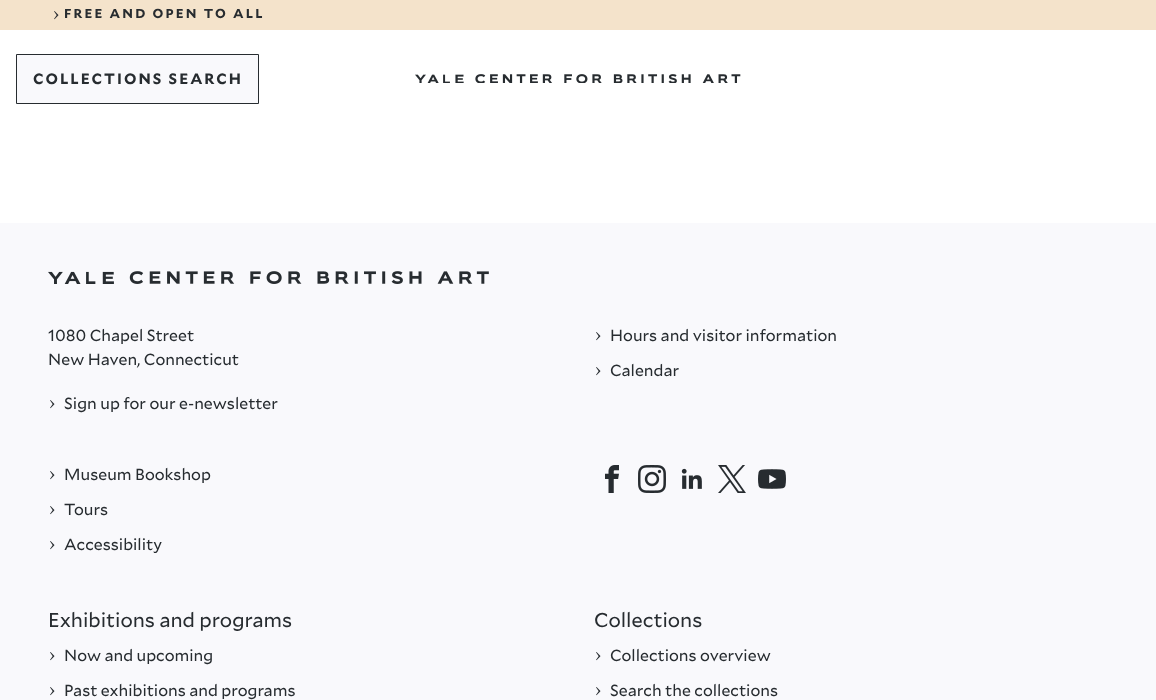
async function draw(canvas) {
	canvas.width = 1156;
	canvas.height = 700;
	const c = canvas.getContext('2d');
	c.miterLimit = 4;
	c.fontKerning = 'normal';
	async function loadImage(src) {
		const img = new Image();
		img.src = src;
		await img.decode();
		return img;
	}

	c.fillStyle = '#fff';
	c.fillRect(0, 0, 1156, 700);
	c.fillStyle = '#f4e3cb';
	c.fillRect(0, 0, 1156, 30);
	c.drawImage(await loadImage('img1.png'), 54, 11, 5, 9);
	c.letterSpacing = '2.2px';
	c.font = 'bold 13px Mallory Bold';
	c.fillStyle = '#272c30';
	c.fillText('FREE AND OPEN TO ALL', 64, 18);
	c.fillStyle = '#f9f9fc';
	c.beginPath();
	c.rect(16.5, 54.5, 242, 49);
	c.fill();
	c.strokeStyle = '#272c30';
	c.stroke();
	c.letterSpacing = '2px';
	c.font = 'bold 15px Mallory Bold';
	c.fillStyle = '#272c30';
	c.fillText('COLLECTIONS SEARCH', 33, 84);
	c.drawImage(await loadImage('img2.png'), 415, 74, 326, 9);
	c.fillStyle = '#f9f9fc';
	c.fillRect(0, 223, 1156, 477);
	c.drawImage(await loadImage('img3.png'), 48, 271, 441, 13);
	c.letterSpacing = '0px';
	c.font = '16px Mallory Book';
	c.fillStyle = '#272c30';
	c.fillText('1080 Chapel Street', 48, 341);
	c.fillText('New Haven, Connecticut', 48, 365);
	c.drawImage(await loadImage('img4.png'), 50, 400, 5, 9);
	c.fillText('Sign up for our e-newsletter', 64, 409);
	c.drawImage(await loadImage('img4.png'), 596, 332, 5, 9);
	c.fillText('Hours and visitor information', 610, 341);
	c.drawImage(await loadImage('img4.png'), 596, 367, 5, 9);
	c.fillText('Calendar', 610, 376);
	c.drawImage(await loadImage('img4.png'), 50, 471, 5, 9);
	c.fillText('Museum Bookshop', 64, 480);
	c.drawImage(await loadImage('img4.png'), 50, 506, 5, 9);
	c.fillText('Tours', 64, 515);
	c.drawImage(await loadImage('img4.png'), 50, 541, 5, 9);
	c.fillText('Accessibility', 64, 550);
	c.drawImage(await loadImage('img5.png'), 605, 465, 14, 28);
	c.drawImage(await loadImage('img6.png'), 638, 465, 28, 28);
	c.drawImage(await loadImage('img7.png'), 681, 468, 21, 21);
	c.drawImage(await loadImage('img8.png'), 718, 465, 28, 28);
	c.drawImage(await loadImage('img9.png'), 758, 469, 28, 20);
	c.font = '20px Mallory Book';
	c.fillText('Exhibitions and programs', 48, 627);
	c.drawImage(await loadImage('img4.png'), 50, 652, 5, 9);
	c.font = '16px Mallory Book';
	c.fillText('Now and upcoming', 64, 661);
	c.drawImage(await loadImage('img4.png'), 50, 687, 5, 9);
	c.fillText('Past exhibitions and programs', 64, 696);
	c.font = '20px Mallory Book';
	c.fillText('Collections', 594, 627);
	c.drawImage(await loadImage('img4.png'), 596, 652, 5, 9);
	c.font = '16px Mallory Book';
	c.fillText('Collections overview', 610, 661);
	c.drawImage(await loadImage('img4.png'), 596, 687, 5, 9);
	c.fillText('Search the collections', 610, 696);
}

draw(document.querySelector('canvas'));
